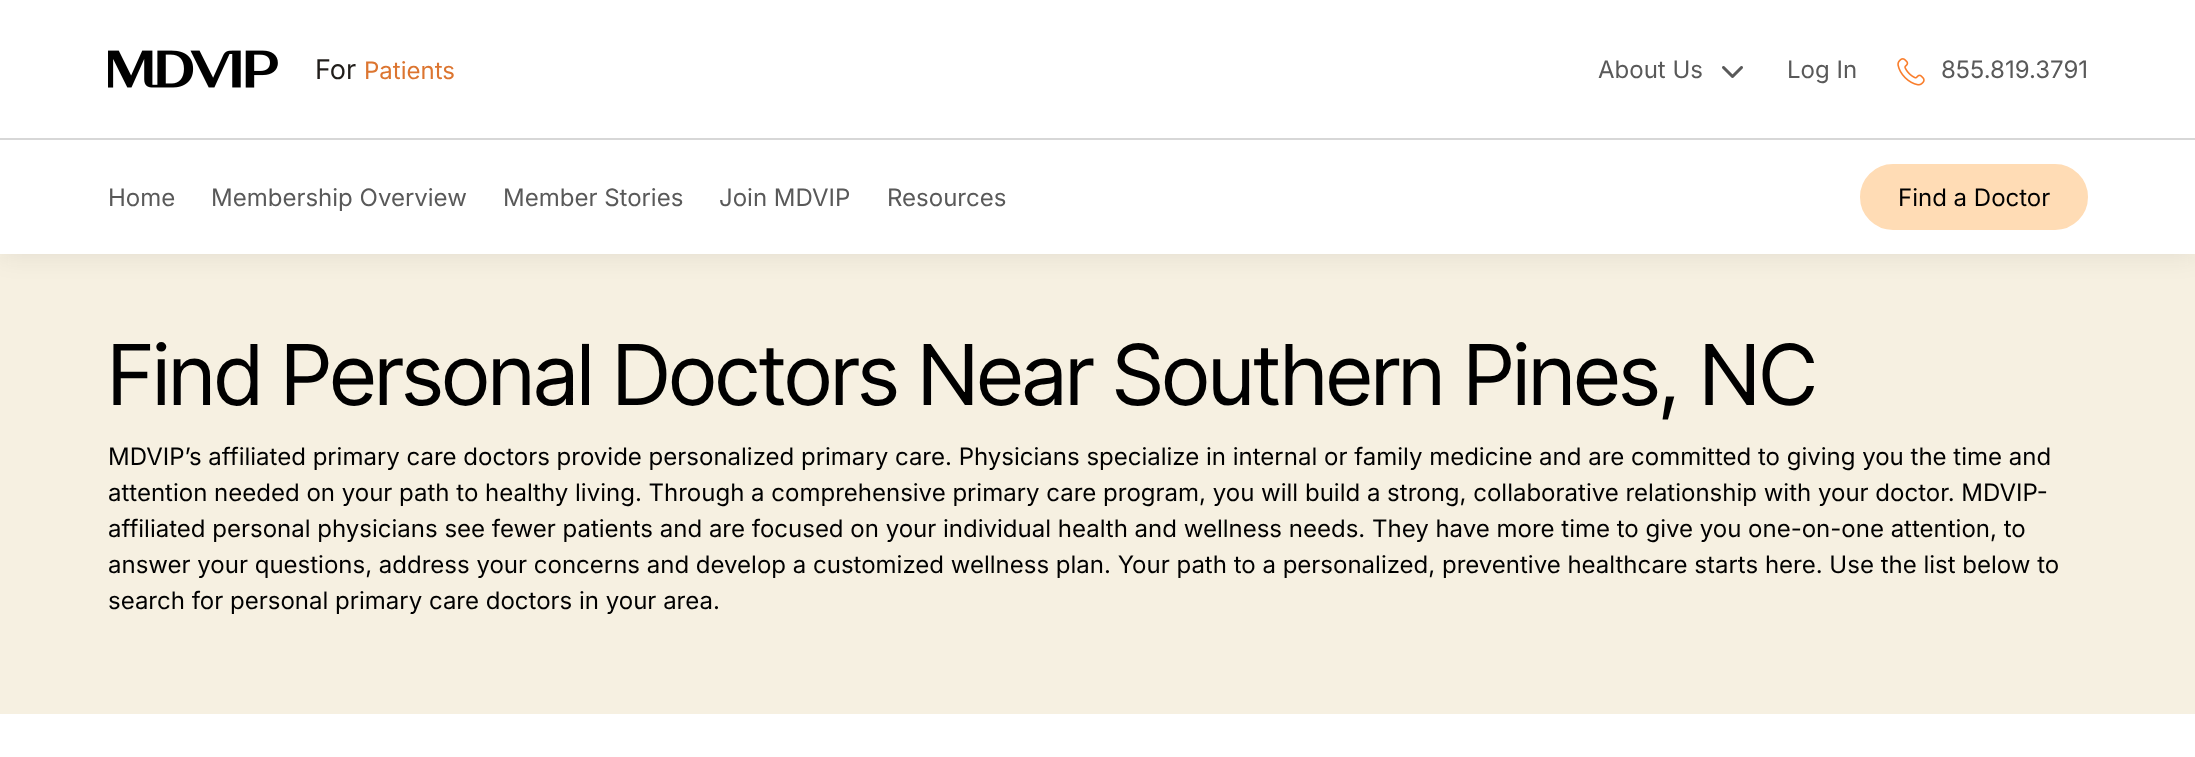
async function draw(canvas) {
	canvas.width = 2195;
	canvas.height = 757;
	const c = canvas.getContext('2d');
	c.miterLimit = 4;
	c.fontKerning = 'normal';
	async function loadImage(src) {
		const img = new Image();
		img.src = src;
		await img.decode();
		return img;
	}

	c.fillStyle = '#fff';
	c.fillRect(0, 0, 2195, 757);
	c.fillStyle = '#f6f0e1';
	c.fillRect(0, 254, 2195, 460);
	c.fillStyle = '#18181814';
	c.filter = 'blur(12px)';
	c.beginPath();
	c.rect(0, 3, 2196, 254);
	c.fill();
	c.filter = 'none';
	c.fillStyle = '#fff';
	c.fillRect(0, 0, 2195, 254);
	c.drawImage(await loadImage('img1.png'), 108, 50, 170, 38);
	c.font = '27px Inter';
	c.fillStyle = '#201d1a';
	c.fillText('For', 315, 79);
	c.font = '24px Inter';
	c.fillStyle = '#dc7530';
	c.fillText('Patients', 364, 79);
	c.fillStyle = '#595959';
	c.fillText('About Us', 1598, 78);
	c.drawImage(await loadImage('img2.png'), 1722, 66, 21, 12);
	c.fillText('Log In', 1787, 78);
	c.drawImage(await loadImage('img3.png'), 1897, 58, 28, 28);
	c.fillText('855.819.3791', 1941, 78);
	c.fillStyle = '#d7d7d7';
	c.fillRect(0, 138, 2195, 2);
	c.fillStyle = '#595959';
	for (const [text, x, y] of [
		['Home', 108, 206],
		['Membership Overview', 211, 206],
		['Member Stories', 503, 206],
		['Join MDVIP', 719, 206],
		['Resources', 887, 206],
	]) {
		c.fillText(text, x, y);
	}
	c.fillStyle = '#ffdcb5';
	c.beginPath();
	c.roundRect(1861, 165, 226, 64, 32);
	c.fill();
	c.strokeStyle = '#ffdcb5';
	c.lineWidth = 2;
	c.stroke();
	c.fillStyle = '#000';
	c.fillText('Find a Doctor', 1898, 206);
	c.font = '84px Inter Tight';
	c.fillText('Find Personal Doctors Near Southern Pines, NC', 108, 405);
	c.font = '24px Inter';
	for (const [text, x, y] of [
		['MDVIP’s affiliated primary care doctors provide personalized primary care. Physicians specialize in internal or family medicine and are committed to giving you the time and', 108, 465],
		['attention needed on your path to healthy living. Through a comprehensive primary care program, you will build a strong, collaborative relationship with your doctor. MDVIP-', 108, 501],
		['affiliated personal physicians see fewer patients and are focused on your individual health and wellness needs. They have more time to give you one-on-one attention, to', 108, 537],
		['answer your questions, address your concerns and develop a customized wellness plan. Your path to a personalized, preventive healthcare starts here. Use the list below to', 108, 573],
		['search for personal primary care doctors in your area.', 108, 609],
	]) {
		c.fillText(text, x, y);
	}
}

draw(document.querySelector('canvas'));
